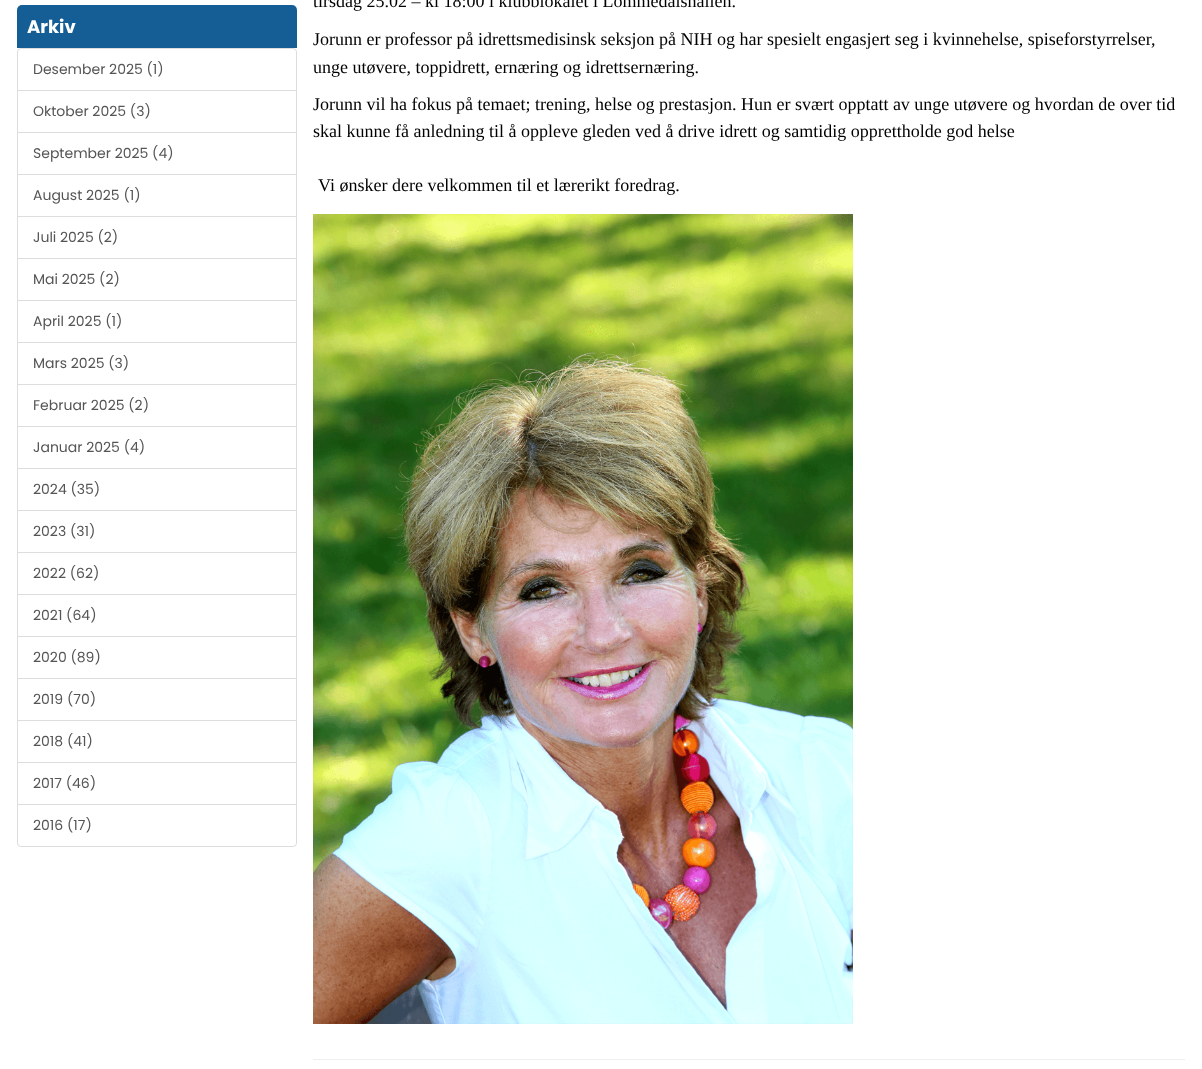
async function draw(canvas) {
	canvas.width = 1202;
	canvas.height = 1069;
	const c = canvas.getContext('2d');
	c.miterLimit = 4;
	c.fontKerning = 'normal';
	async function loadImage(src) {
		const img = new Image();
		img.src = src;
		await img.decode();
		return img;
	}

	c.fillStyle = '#fff';
	c.fillRect(0, 0, 1202, 1069);
	c.fillStyle = '#145d95';
	c.beginPath();
	c.roundRect(17, 5, 280, 43, [5, 5, 0, 0]);
	c.fill();
	c.font = 'bold 18px Poppins';
	c.fillStyle = '#fff';
	c.fillText('Arkiv', 27, 33);
	c.beginPath();
	c.roundRect(17.5, 48.5, 279, 42, [3.5, 3.5, 0, 0]);
	c.strokeStyle = '#ddd';
	c.stroke();
	c.font = '14px Poppins';
	c.fillStyle = '#555';
	c.fillText('Desember 2025 (1)', 33, 74);
	c.strokeRect(17.5, 90.5, 279, 42);
	c.fillText('Oktober 2025 (3)', 33, 116);
	c.strokeRect(17.5, 132.5, 279, 42);
	c.fillText('September 2025 (4)', 33, 158);
	c.strokeRect(17.5, 174.5, 279, 42);
	c.fillText('August 2025 (1)', 33, 200);
	c.strokeRect(17.5, 216.5, 279, 42);
	c.fillText('Juli 2025 (2)', 33, 242);
	c.strokeRect(17.5, 258.5, 279, 42);
	c.fillText('Mai 2025 (2)', 33, 284);
	c.strokeRect(17.5, 300.5, 279, 42);
	c.fillText('April 2025 (1)', 33, 326);
	c.strokeRect(17.5, 342.5, 279, 42);
	c.fillText('Mars 2025 (3)', 33, 368);
	c.strokeRect(17.5, 384.5, 279, 42);
	c.fillText('Februar 2025 (2)', 33, 410);
	c.strokeRect(17.5, 426.5, 279, 42);
	c.fillText('Januar 2025 (4)', 33, 452);
	c.strokeRect(17.5, 468.5, 279, 42);
	c.fillText('2024 (35)', 33, 494);
	c.strokeRect(17.5, 510.5, 279, 42);
	c.fillText('2023 (31)', 33, 536);
	c.strokeRect(17.5, 552.5, 279, 42);
	c.fillText('2022 (62)', 33, 578);
	c.strokeRect(17.5, 594.5, 279, 42);
	c.fillText('2021 (64)', 33, 620);
	c.strokeRect(17.5, 636.5, 279, 42);
	c.fillText('2020 (89)', 33, 662);
	c.strokeRect(17.5, 678.5, 279, 42);
	c.fillText('2019 (70)', 33, 704);
	c.strokeRect(17.5, 720.5, 279, 42);
	c.fillText('2018 (41)', 33, 746);
	c.strokeRect(17.5, 762.5, 279, 42);
	c.fillText('2017 (46)', 33, 788);
	c.fillStyle = '#fff';
	c.beginPath();
	c.roundRect(17.5, 804.5, 279, 42, [0, 0, 3.5, 3.5]);
	c.fill();
	c.stroke();
	c.fillStyle = '#555';
	c.fillText('2016 (17)', 33, 830);
	c.font = '18px Liberation Serif';
	c.fillStyle = '#000';
	for (const [text, x, y] of [
		['tirsdag 25.02 – kl 18:00 i klubblokalet i Lommedalshallen.', 313, 7],
		['Jorunn er professor på idrettsmedisinsk seksjon på NIH og har spesielt engasjert seg i kvinnehelse, spiseforstyrrelser,', 313, 45],
		['unge utøvere, toppidrett, ernæring og idrettsernæring.', 313, 73],
		['Jorunn vil ha fokus på temaet; trening, helse og prestasjon. Hun er svært opptatt av unge utøvere og hvordan de over tid', 313, 110],
		['skal kunne få anledning til å oppleve gleden ved å drive idrett og samtidig opprettholde god helse', 313, 137],
		['Vi ønsker dere velkommen til et lærerikt foredrag.', 318, 191],
	]) {
		c.fillText(text, x, y);
	}
	c.drawImage(await loadImage('img1.png'), 313, 214, 540, 810);
	c.fillStyle = '#eee';
	c.fillRect(313, 1059, 872, 1);
}

draw(document.querySelector('canvas'));
